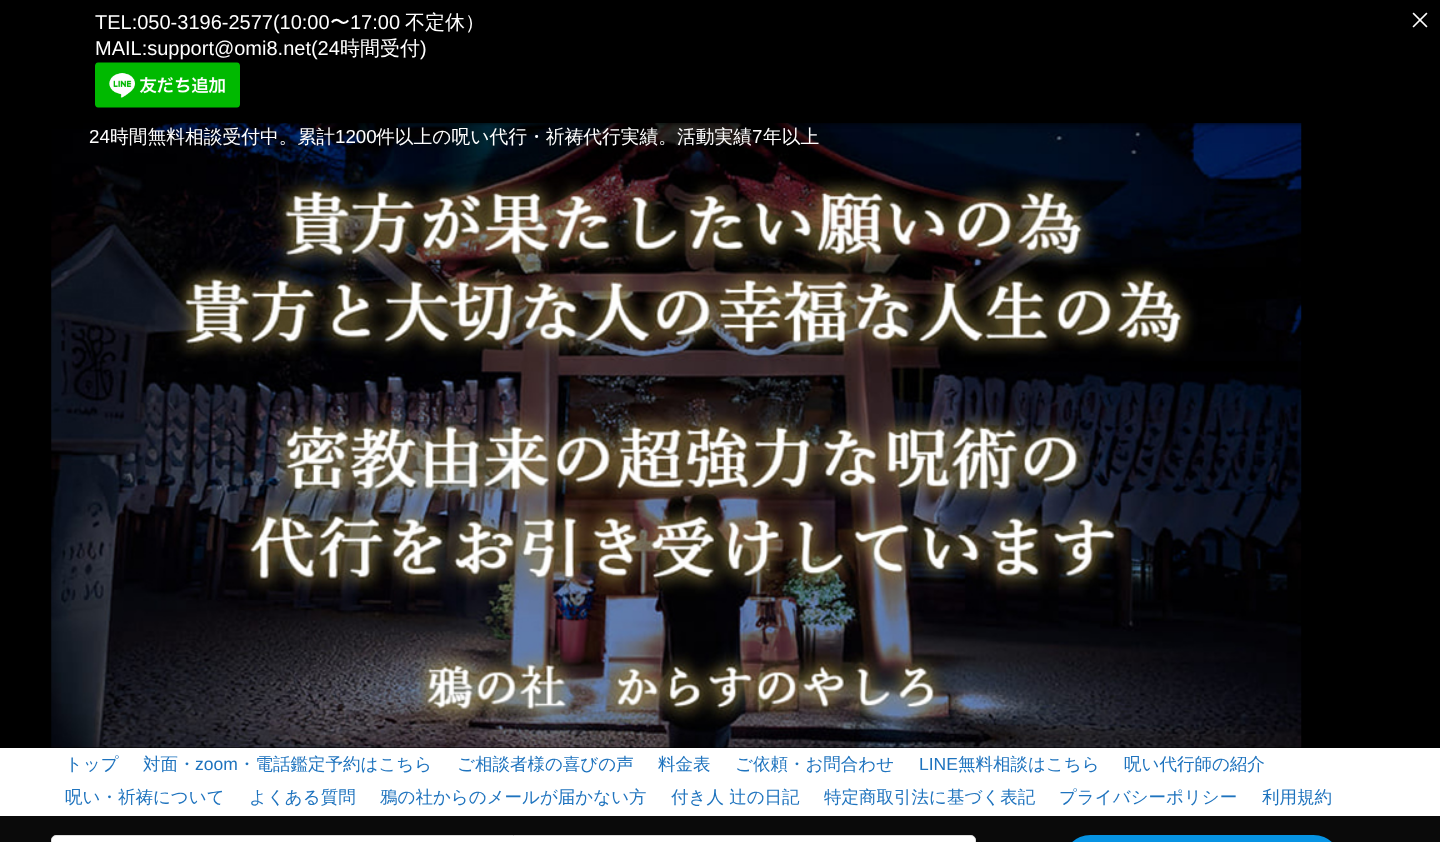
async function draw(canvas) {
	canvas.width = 1440;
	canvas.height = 842;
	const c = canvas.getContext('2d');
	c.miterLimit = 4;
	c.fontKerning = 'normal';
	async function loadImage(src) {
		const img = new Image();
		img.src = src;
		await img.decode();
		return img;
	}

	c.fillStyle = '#0a0a0a';
	c.fillRect(0, 0, 1440, 842);
	c.fillStyle = '#000';
	c.fillRect(0, 123, 1440, 625);
	c.drawImage(await loadImage('img3.png'), 51, 123, 1251, 625);
	c.fillStyle = '#00000080';
	c.filter = 'blur(2.5px)';
	c.beginPath();
	c.rect(3, 5, 1435, 118);
	c.fill();
	c.filter = 'none';
	c.filter = 'blur(2.5px)';
	c.beginPath();
	c.rect(3, 5, 1435, 118);
	c.fill();
	c.filter = 'none';
	c.fillStyle = '#000';
	c.fillRect(0, 0, 1440, 123);
	c.font = '20px Liberation Sans';
	c.fillStyle = '#fff';
	c.fillText('TEL:050-3196-2577(10:00', 95, 29);
	c.font = '500 20px WenQuanYi Zen Hei';
	c.fillText('〜', 330, 29);
	c.font = '20px Liberation Sans';
	c.fillText('17:00', 350, 29);
	c.font = '500 20px WenQuanYi Zen Hei';
	c.fillText('不定休）', 405, 29);
	c.font = '20px Liberation Sans';
	c.fillText('MAIL:support@omi8.net(24', 95, 55);
	c.font = '500 20px WenQuanYi Zen Hei';
	c.fillText('時間受付', 340, 55);
	c.font = '20px Liberation Sans';
	c.fillText(')', 420, 55);
	c.drawImage(await loadImage('img1.png'), 95, 62, 145, 46);
	c.drawImage(await loadImage('img2.png'), 1412, 12, 16, 16);
	c.font = '18.75px Liberation Sans';
	c.fillText('24', 89, 143);
	c.font = '500 18.75px WenQuanYi Zen Hei';
	c.fillText('時間無料相談受付中。累計', 110, 143);
	c.font = '18.75px Liberation Sans';
	c.fillText('1200', 335, 143);
	c.font = '500 18.75px WenQuanYi Zen Hei';
	c.fillText('件以上の呪い代行・祈祷代行実績。活動実績', 376, 143);
	c.font = '18.75px Liberation Sans';
	c.fillText('7', 752, 143);
	c.font = '500 18.75px WenQuanYi Zen Hei';
	c.fillText('年以上', 763, 143);
	c.fillRect(0, 748, 1440, 68);
	c.font = '500 17.5px WenQuanYi Zen Hei';
	c.fillStyle = '#1e73be';
	c.fillText('トップ', 65, 770);
	c.fillText('対面・', 143, 770);
	c.font = '17.5px Liberation Sans';
	c.fillText('zoom', 195, 770);
	c.font = '500 17.5px WenQuanYi Zen Hei';
	for (const [text, x, y] of [
		['・電話鑑定予約はこちら', 238, 770],
		['ご相談者様の喜びの声', 457, 770],
		['料金表', 658, 770],
		['ご依頼・お問合わせ', 735, 770],
	]) {
		c.fillText(text, x, y);
	}
	c.font = '17.5px Liberation Sans';
	c.fillText('LINE', 919, 770);
	c.font = '500 17.5px WenQuanYi Zen Hei';
	for (const [text, x, y] of [
		['無料相談はこちら', 958, 770],
		['呪い代行師の紹介', 1124, 770],
		['呪い・祈祷について', 65, 803],
		['よくある質問', 249, 803],
		['鴉の社からのメールが届かない方', 380, 803],
		['付き人 辻の日記', 671, 803],
		['特定商取引法に基づく表記', 824, 803],
		['プライバシーポリシー', 1059, 803],
		['利用規約', 1262, 803],
	]) {
		c.fillText(text, x, y);
	}
	c.fillStyle = '#fff';
	c.beginPath();
	c.roundRect(51.5, 835.5, 924, 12, 4.5);
	c.fill();
	c.strokeStyle = '#ddd';
	c.stroke();
	c.fillStyle = '#0693e3';
	c.beginPath();
	c.roundRect(1063, 835, 278, 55, 47.5);
	c.fill();
}

draw(document.querySelector('canvas'));
